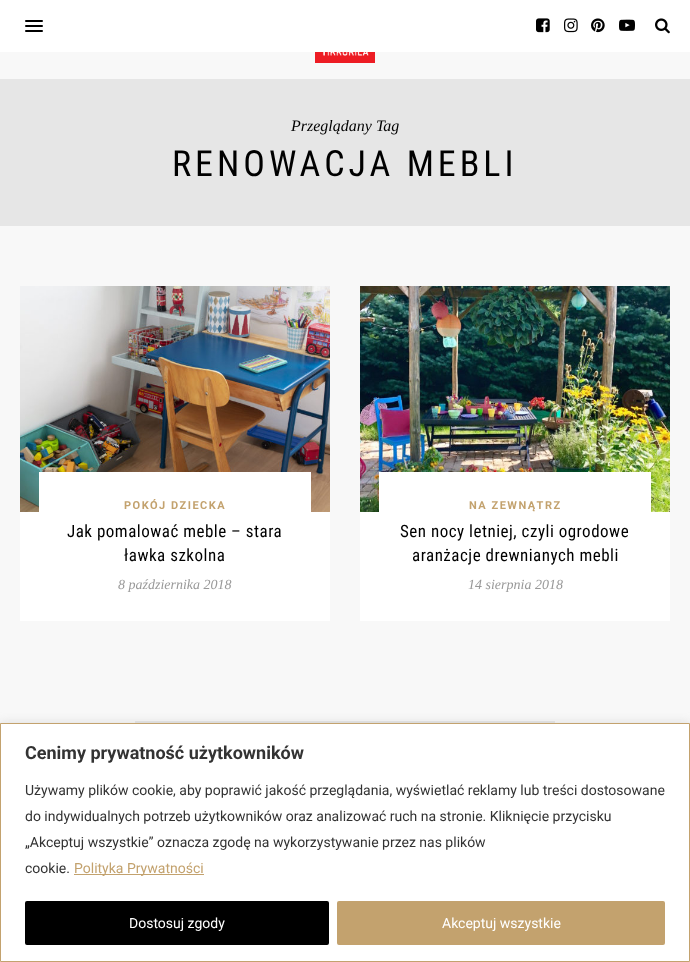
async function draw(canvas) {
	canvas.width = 690;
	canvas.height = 962;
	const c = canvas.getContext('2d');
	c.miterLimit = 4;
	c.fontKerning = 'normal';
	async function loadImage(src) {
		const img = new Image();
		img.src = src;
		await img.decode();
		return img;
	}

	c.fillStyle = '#f8f8f8';
	c.fillRect(0, 0, 690, 962);
	c.fillStyle = '#fff';
	c.fillRect(0, 0, 690, 52);
	c.fillStyle = '#000';
	c.beginPath();
	c.roundRect(25, 20, 18, 2, 1);
	c.fill();
	c.beginPath();
	c.roundRect(25, 25, 18, 2, 1);
	c.fill();
	c.beginPath();
	c.roundRect(25, 30, 18, 2, 1);
	c.fill();
	c.drawImage(await loadImage('img1.png'), 536, 18, 14, 15);
	c.drawImage(await loadImage('img2.png'), 564, 18, 14, 15);
	c.drawImage(await loadImage('img3.png'), 591, 18, 14, 15);
	c.drawImage(await loadImage('img4.png'), 619, 19, 16, 12);
	c.drawImage(await loadImage('img5.png'), 655, 18, 15, 16);
	c.drawImage(await loadImage('img6.png'), 315, 52, 60, 11);
	c.fillStyle = '#e6e6e6';
	c.fillRect(0, 79, 690, 147);
	c.font = 'italic 16px Liberation Serif';
	c.fillStyle = '#000';
	c.fillText('Przeglądany Tag', 291, 131);
	c.letterSpacing = '4px';
	c.font = '36px Roboto Condensed';
	c.fillText('RENOWACJA MEBLI', 172, 176);
	c.fillStyle = '#fff';
	c.fillRect(20, 512, 310, 109);
	c.drawImage(await loadImage('img7.png'), 20, 286, 310, 226);
	c.fillRect(39, 472, 272, 40);
	c.letterSpacing = '1.5px';
	c.font = 'bold 11px Roboto';
	c.fillStyle = '#c3a26e';
	c.fillText('POKÓJ DZIECKA', 124, 509);
	c.letterSpacing = '0.5px';
	c.font = '17px Roboto Condensed';
	c.fillStyle = '#000';
	c.fillText('Jak pomalować meble – stara', 67, 537);
	c.fillText('ławka szkolna', 124, 561);
	c.letterSpacing = '0px';
	c.font = 'italic 14px Liberation Serif';
	c.fillStyle = '#999';
	c.fillText('8 października 2018', 118, 589);
	c.fillStyle = '#fff';
	c.fillRect(360, 512, 310, 109);
	c.drawImage(await loadImage('img8.png'), 360, 286, 310, 226);
	c.fillRect(379, 472, 272, 40);
	c.letterSpacing = '1.5px';
	c.font = 'bold 11px Roboto';
	c.fillStyle = '#c3a26e';
	c.fillText('NA ZEWNĄTRZ', 469, 509);
	c.letterSpacing = '0.5px';
	c.font = '17px Roboto Condensed';
	c.fillStyle = '#000';
	c.fillText('Sen nocy letniej, czyli ogrodowe', 400, 537);
	c.fillText('aranżacje drewnianych mebli', 412, 561);
	c.letterSpacing = '0px';
	c.font = 'italic 14px Liberation Serif';
	c.fillStyle = '#999';
	c.fillText('14 sierpnia 2018', 468, 589);
	c.fillStyle = '#e6e6e6';
	c.fillRect(135, 721, 420, 2);
	c.fillStyle = '#acabab4d';
	c.filter = 'blur(5px)';
	c.beginPath();
	c.rect(0, 722, 690, 239);
	c.fill();
	c.filter = 'none';
	c.fillStyle = '#fff';
	c.beginPath();
	c.rect(0.5, 723.5, 689, 238);
	c.fill();
	c.strokeStyle = '#c3a26e';
	c.stroke();
	c.font = 'bold 18px Roboto';
	c.fillStyle = '#333';
	c.fillText('Cenimy prywatność użytkowników', 25, 759);
	c.font = '14px Roboto';
	for (const [text, x, y] of [
		['Używamy plików cookie, aby poprawić jakość przeglądania, wyświetlać reklamy lub treści dostosowane', 25, 795],
		['do indywidualnych potrzeb użytkowników oraz analizować ruch na stronie. Kliknięcie przycisku', 25, 821],
		['„Akceptuj wszystkie” oznacza zgodę na wykorzystywanie przez nas plików', 25, 847],
		['cookie.', 25, 873],
	]) {
		c.fillText(text, x, y);
	}
	c.fillStyle = '#c3a26e';
	c.fillRect(74, 874, 130, 1);
	c.fillText('Polityka Prywatności', 74, 873);
	c.fillStyle = '#000';
	c.beginPath();
	c.roundRect(26, 902, 302, 42, 1);
	c.fill();
	c.strokeStyle = '#000';
	c.lineWidth = 2;
	c.stroke();
	c.fillStyle = '#fff';
	c.fillText('Dostosuj zgody', 129, 928);
	c.fillStyle = '#c3a26e';
	c.beginPath();
	c.roundRect(338, 902, 326, 42, 1);
	c.fill();
	c.strokeStyle = '#c3a26e';
	c.stroke();
	c.fillStyle = '#fff';
	c.fillText('Akceptuj wszystkie', 442, 928);
}

draw(document.querySelector('canvas'));
